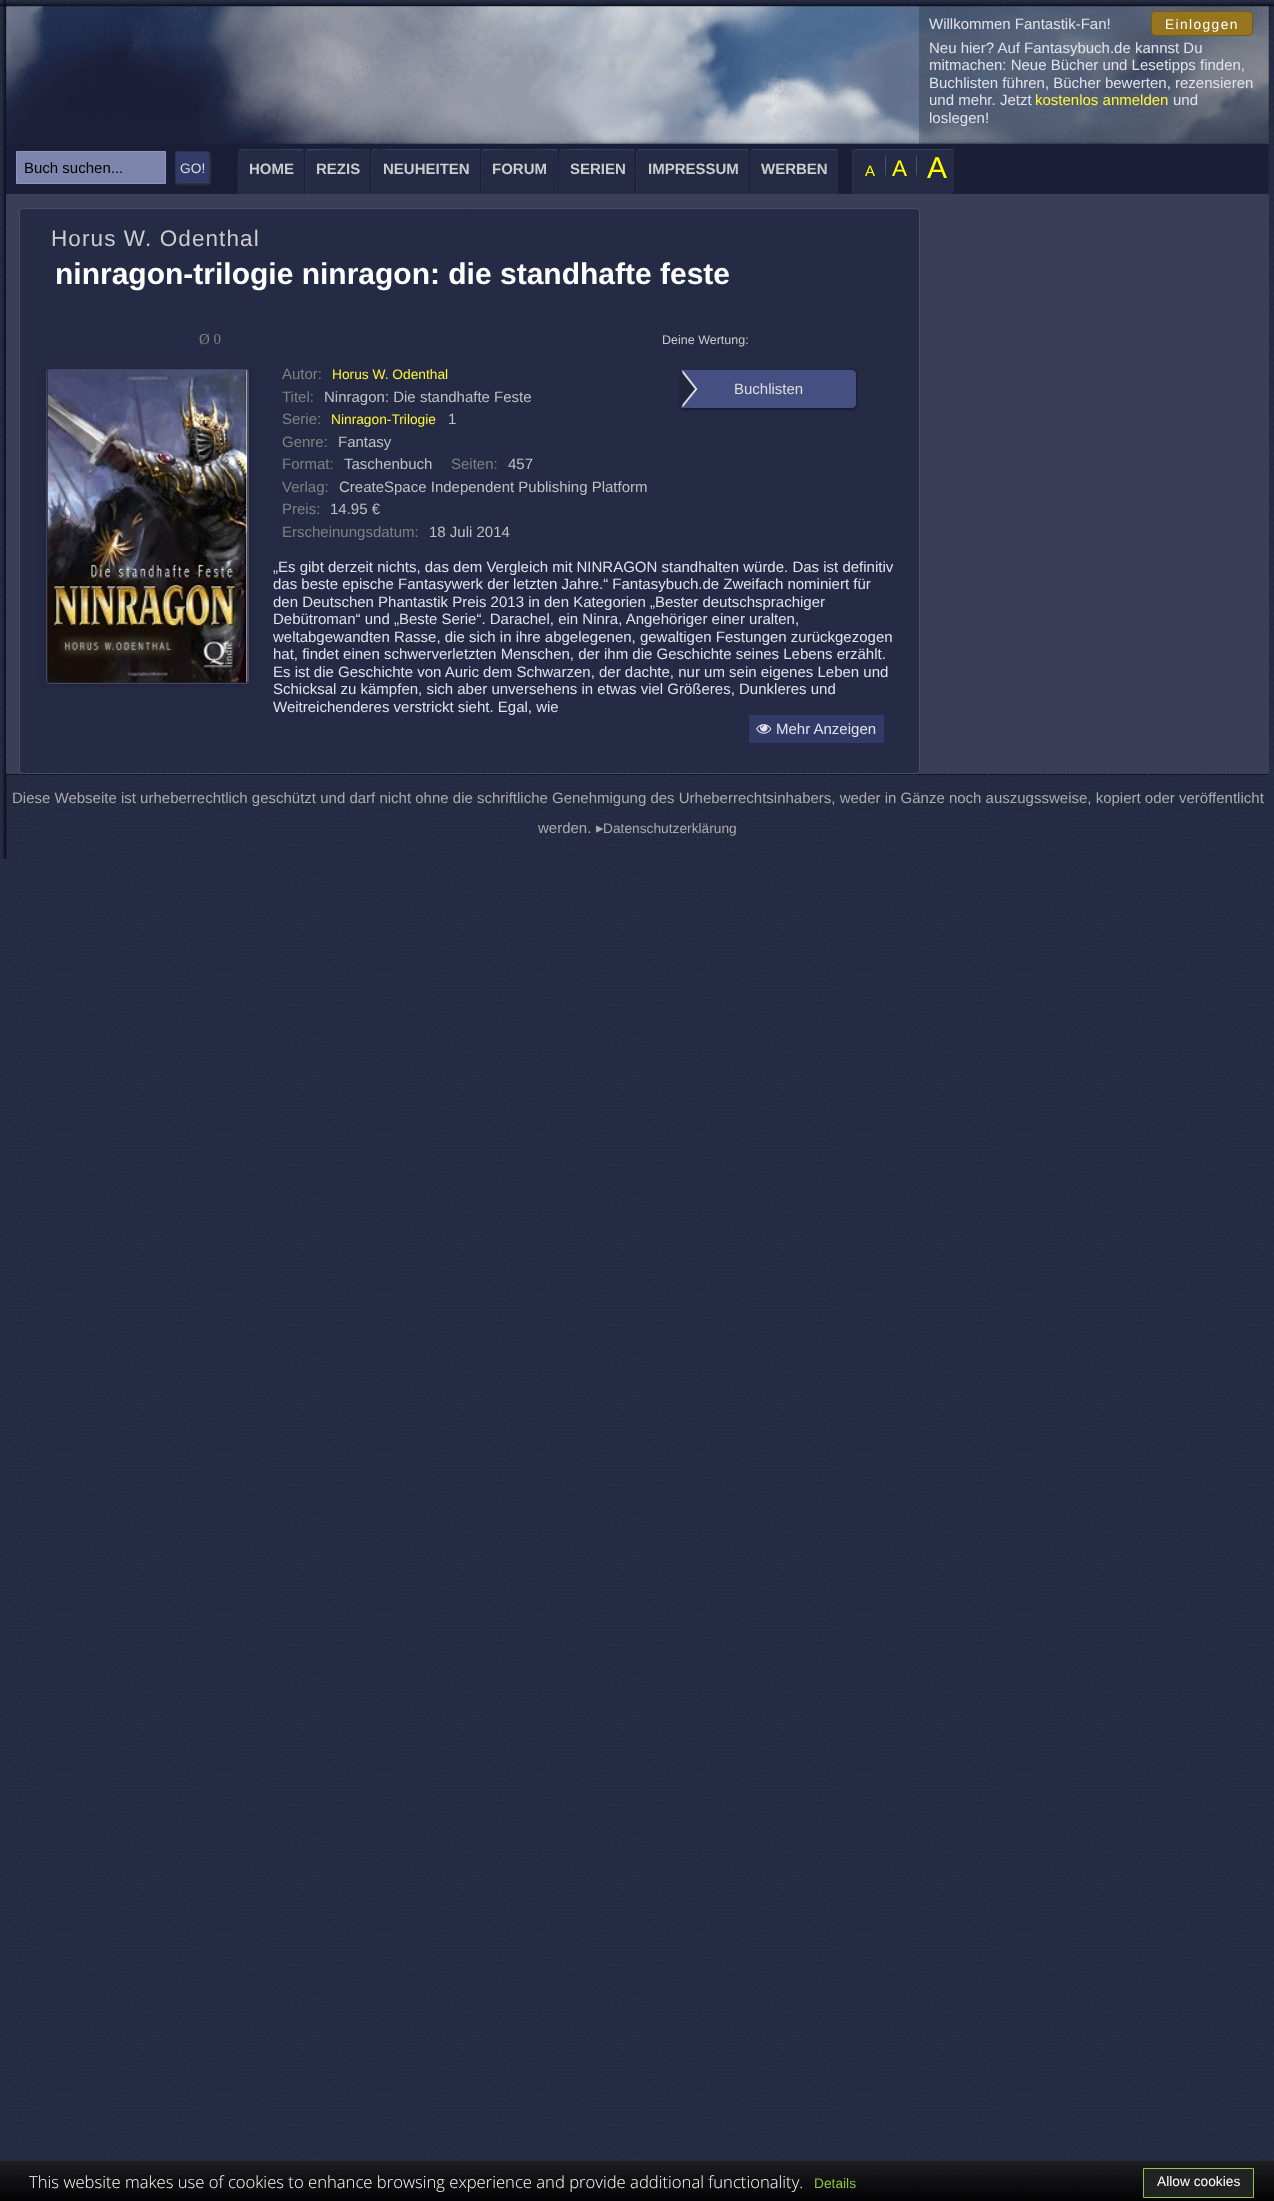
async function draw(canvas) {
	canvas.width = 1274;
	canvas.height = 2201;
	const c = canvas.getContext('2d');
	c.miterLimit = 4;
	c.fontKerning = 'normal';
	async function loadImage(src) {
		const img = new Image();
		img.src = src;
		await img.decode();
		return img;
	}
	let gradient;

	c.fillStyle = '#2d3354';
	c.fillRect(0, 0, 1274, 2201);
	c.drawImage(await loadImage('img1.png'), 0, 0, 1274, 2201);
	c.drawImage(await loadImage('img2.png'), 2, 0, 5, 859);
	c.drawImage(await loadImage('img3.png'), 0, 2, 1274, 5);
	c.drawImage(await loadImage('img4.png'), 1250, 2, 23, 23);
	c.drawImage(await loadImage('img5.png'), 6, 6, 1263, 188);
	c.fillStyle = '#00000033';
	c.fillRect(919, 6, 350, 138);
	c.font = '15px Liberation Sans';
	c.fillStyle = '#e0e1ec';
	c.fillText('Willkommen Fantastik-Fan!', 929, 29);
	c.fillStyle = '#97751f';
	c.beginPath();
	c.roundRect(1151.5, 11.5, 101, 24, 3.5);
	c.fill();
	c.strokeStyle = '#745a19';
	c.stroke();
	c.letterSpacing = '1.4px';
	c.font = '13.75px Liberation Sans';
	c.fillStyle = '#fff';
	c.fillText('Einloggen', 1165, 29);
	c.letterSpacing = '0px';
	c.font = '15px Liberation Sans';
	c.fillStyle = '#e0e1ec';
	for (const [text, x, y] of [
		['Neu hier? Auf Fantasybuch.de kannst Du', 929, 53],
		['mitmachen: Neue Bücher und Lesetipps finden,', 929, 70],
		['Buchlisten führen, Bücher bewerten, rezensieren', 929, 88],
		['und mehr. Jetzt', 929, 105],
	]) {
		c.fillText(text, x, y);
	}
	c.fillStyle = '#fdf53a';
	c.fillText('kostenlos anmelden', 1035, 105);
	c.fillStyle = '#e0e1ec';
	c.fillText('und', 1173, 105);
	c.fillText('loslegen!', 929, 123);
	c.fillStyle = '#7d85ac';
	c.beginPath();
	c.rect(16.5, 151.5, 149, 32);
	c.fill();
	c.strokeStyle = '#8d95bc';
	c.stroke();
	c.fillStyle = '#000';
	c.fillText('Buch suchen...', 24, 173);
	c.fillStyle = '#333';
	c.filter = 'blur(1px)';
	c.beginPath();
	c.roundRect(176, 153, 35, 32, 2.5);
	c.fill();
	c.filter = 'none';
	c.fillStyle = '#323b67';
	c.beginPath();
	c.roundRect(175.5, 151.5, 34, 32, 2);
	c.fill();
	c.strokeStyle = '#2b3257';
	c.stroke();
	c.font = '13.75px Liberation Sans';
	c.fillStyle = '#ddd';
	c.fillText('GO!', 180, 173);
	c.fillStyle = '#252a45';
	c.beginPath();
	c.roundRect(238, 149, 67, 45, [4, 4, 0, 0]);
	c.fill();
	c.fillStyle = '#3b4165';
	c.beginPath();
	c.moveTo(241, 149);
	c.lineTo(301, 149);
	c.lineTo(304, 150);
	c.lineTo(303, 151);
	c.bezierCurveTo(302, 150, 244, 149, 241, 150);
	c.lineTo(240, 151);
	c.lineTo(239, 150);
	c.closePath();
	c.fill();
	c.fillStyle = '#1a1e37';
	c.beginPath();
	c.moveTo(304, 150);
	c.lineTo(305, 151);
	c.lineTo(305, 194);
	c.lineTo(304, 194);
	c.lineTo(304, 152);
	c.lineTo(303, 151);
	c.closePath();
	c.fill();
	c.fillStyle = '#2c304b';
	c.beginPath();
	c.moveTo(239, 194);
	c.lineTo(238, 194);
	c.bezierCurveTo(238, 188, 237, 152, 239, 150);
	c.lineTo(240, 151);
	c.bezierCurveTo(238, 152, 239, 189, 239, 194);
	c.closePath();
	c.fill();
	c.font = 'bold 15px Liberation Sans';
	c.fillStyle = '#ccc';
	c.fillText('HOME', 249, 174);
	c.fillStyle = '#252a45';
	c.beginPath();
	c.roundRect(305, 149, 66, 45, [4, 4, 0, 0]);
	c.fill();
	c.fillStyle = '#3b4165';
	c.beginPath();
	c.moveTo(309, 149);
	c.bezierCurveTo(316, 149, 368, 148, 370, 150);
	c.lineTo(369, 151);
	c.lineTo(368, 150);
	c.bezierCurveTo(363, 149, 308, 150, 307, 151);
	c.lineTo(306, 150);
	c.closePath();
	c.fill();
	c.fillStyle = '#1a1e37';
	c.beginPath();
	c.moveTo(370, 194);
	c.bezierCurveTo(370, 189, 371, 152, 369, 151);
	c.lineTo(370, 150);
	c.bezierCurveTo(372, 152, 371, 188, 371, 194);
	c.closePath();
	c.fill();
	c.fillStyle = '#2c304b';
	c.beginPath();
	c.moveTo(305, 194);
	c.lineTo(306, 194);
	c.lineTo(306, 152);
	c.lineTo(307, 151);
	c.lineTo(306, 150);
	c.lineTo(305, 152);
	c.closePath();
	c.fill();
	c.fillStyle = '#ccc';
	c.fillText('REZIS', 316, 174);
	c.fillStyle = '#252a45';
	c.beginPath();
	c.roundRect(371, 149, 110, 45, [4, 4, 0, 0]);
	c.fill();
	c.fillStyle = '#3b4165';
	c.beginPath();
	c.moveTo(375, 149);
	c.lineTo(478, 149);
	c.lineTo(480, 150);
	c.lineTo(479, 151);
	c.lineTo(478, 150);
	c.lineTo(392, 150);
	c.bezierCurveTo(386, 150, 379, 147, 373, 151);
	c.lineTo(372, 150);
	c.closePath();
	c.fill();
	c.fillStyle = '#1a1e37';
	c.beginPath();
	c.moveTo(480, 194);
	c.bezierCurveTo(480, 189, 481, 152, 479, 151);
	c.lineTo(480, 150);
	c.bezierCurveTo(482, 152, 481, 188, 481, 194);
	c.closePath();
	c.fill();
	c.fillStyle = '#2c304b';
	c.beginPath();
	c.moveTo(371, 194);
	c.lineTo(372, 194);
	c.lineTo(372, 152);
	c.lineTo(373, 151);
	c.lineTo(372, 150);
	c.lineTo(371, 151);
	c.closePath();
	c.fill();
	c.fillStyle = '#ccc';
	c.fillText('NEUHEITEN', 383, 174);
	c.fillStyle = '#252a45';
	c.beginPath();
	c.roundRect(481, 149, 78, 45, [4, 4, 0, 0]);
	c.fill();
	c.fillStyle = '#3b4165';
	c.beginPath();
	c.moveTo(485, 149);
	c.lineTo(555, 149);
	c.lineTo(558, 150);
	c.lineTo(557, 151);
	c.bezierCurveTo(555, 149, 485, 149, 483, 151);
	c.lineTo(482, 150);
	c.closePath();
	c.fill();
	c.fillStyle = '#1a1e37';
	c.beginPath();
	c.moveTo(558, 150);
	c.lineTo(559, 151);
	c.lineTo(559, 194);
	c.lineTo(558, 194);
	c.lineTo(558, 152);
	c.lineTo(557, 151);
	c.closePath();
	c.fill();
	c.fillStyle = '#2c304b';
	c.beginPath();
	c.moveTo(481, 194);
	c.lineTo(482, 194);
	c.lineTo(482, 152);
	c.lineTo(483, 151);
	c.lineTo(482, 150);
	c.lineTo(481, 151);
	c.closePath();
	c.fill();
	c.fillStyle = '#ccc';
	c.fillText('FORUM', 492, 174);
	c.fillStyle = '#252a45';
	c.beginPath();
	c.roundRect(559, 149, 77, 45, [4, 4, 0, 0]);
	c.fill();
	c.fillStyle = '#3b4165';
	c.beginPath();
	c.moveTo(562, 149);
	c.bezierCurveTo(570, 149, 633, 148, 635, 150);
	c.lineTo(634, 151);
	c.bezierCurveTo(632, 149, 581, 150, 574, 150);
	c.bezierCurveTo(569, 150, 564, 148, 561, 151);
	c.lineTo(560, 150);
	c.closePath();
	c.fill();
	c.fillStyle = '#1a1e37';
	c.beginPath();
	c.moveTo(635, 194);
	c.bezierCurveTo(635, 189, 636, 152, 634, 151);
	c.lineTo(635, 150);
	c.bezierCurveTo(637, 151, 636, 188, 636, 194);
	c.closePath();
	c.fill();
	c.fillStyle = '#2c304b';
	c.beginPath();
	c.moveTo(560, 194);
	c.lineTo(559, 194);
	c.bezierCurveTo(559, 188, 558, 152, 560, 150);
	c.lineTo(561, 151);
	c.bezierCurveTo(559, 152, 560, 189, 560, 194);
	c.closePath();
	c.fill();
	c.fillStyle = '#ccc';
	c.fillText('SERIEN', 570, 174);
	c.fillStyle = '#252a45';
	c.beginPath();
	c.roundRect(636, 149, 114, 45, [4, 4, 0, 0]);
	c.fill();
	c.fillStyle = '#3b4165';
	c.beginPath();
	c.moveTo(640, 149);
	c.lineTo(746, 149);
	c.lineTo(749, 150);
	c.lineTo(748, 151);
	c.lineTo(746, 150);
	c.lineTo(640, 150);
	c.lineTo(638, 151);
	c.lineTo(637, 150);
	c.closePath();
	c.fill();
	c.fillStyle = '#1a1e37';
	c.beginPath();
	c.moveTo(749, 150);
	c.lineTo(750, 151);
	c.lineTo(750, 194);
	c.lineTo(749, 194);
	c.lineTo(749, 152);
	c.lineTo(748, 151);
	c.closePath();
	c.fill();
	c.fillStyle = '#2c304b';
	c.beginPath();
	c.moveTo(636, 194);
	c.lineTo(638, 194);
	c.bezierCurveTo(638, 189, 637, 153, 638, 151);
	c.lineTo(637, 150);
	c.lineTo(636, 151);
	c.closePath();
	c.fill();
	c.fillStyle = '#ccc';
	c.fillText('IMPRESSUM', 648, 174);
	c.fillStyle = '#252a45';
	c.beginPath();
	c.roundRect(750, 149, 88, 45, [4, 4, 0, 0]);
	c.fill();
	c.fillStyle = '#3b4165';
	c.beginPath();
	c.moveTo(754, 149);
	c.lineTo(835, 149);
	c.lineTo(838, 150);
	c.lineTo(838, 151);
	c.lineTo(835, 150);
	c.lineTo(754, 150);
	c.lineTo(752, 151);
	c.lineTo(751, 150);
	c.closePath();
	c.fill();
	c.fillStyle = '#2c304b';
	c.beginPath();
	c.moveTo(750, 194);
	c.lineTo(751, 194);
	c.lineTo(751, 152);
	c.lineTo(752, 151);
	c.lineTo(751, 150);
	c.lineTo(750, 152);
	c.closePath();
	c.fill();
	c.fillStyle = '#ccc';
	c.fillText('WERBEN', 761, 174);
	c.fillStyle = '#252a45';
	c.beginPath();
	c.roundRect(853, 149, 102, 45, 4);
	c.fill();
	c.fillStyle = '#3b4165';
	c.beginPath();
	c.moveTo(856, 149);
	c.lineTo(951, 149);
	c.lineTo(954, 150);
	c.lineTo(953, 151);
	c.lineTo(951, 150);
	c.lineTo(888, 150);
	c.lineTo(855, 150);
	c.lineTo(855, 151);
	c.lineTo(853, 150);
	c.closePath();
	c.fill();
	c.fillStyle = '#1a1e37';
	c.beginPath();
	c.moveTo(954, 150);
	c.bezierCurveTo(955, 150, 955, 151, 955, 152);
	c.lineTo(955, 190);
	c.bezierCurveTo(955, 192, 954, 193, 952, 194);
	c.bezierCurveTo(953, 193, 954, 192, 954, 191);
	c.lineTo(954, 152);
	c.lineTo(953, 151);
	c.closePath();
	c.fill();
	c.fillStyle = '#2c304b';
	c.beginPath();
	c.moveTo(855, 194);
	c.bezierCurveTo(854, 194, 853, 193, 852, 192);
	c.lineTo(852, 150);
	c.lineTo(853, 150);
	c.lineTo(855, 151);
	c.bezierCurveTo(854, 152, 853, 188, 854, 191);
	c.closePath();
	c.fill();
	c.font = '15px Liberation Sans';
	c.fillStyle = '#ff0';
	c.fillText('A', 865, 176);
	c.fillStyle = '#4b4f6a';
	c.fillRect(885, 156, 1, 19);
	c.font = '22.5px Liberation Sans';
	c.fillStyle = '#ff0';
	c.fillText('A', 892, 176);
	c.fillStyle = '#4b4f6a';
	c.fillRect(916, 156, 1, 19);
	c.font = '30px Liberation Sans';
	c.fillStyle = '#ff0';
	c.fillText('A', 927, 178);
	c.fillStyle = '#3c3e58';
	c.fillRect(6, 194, 1263, 580);
	c.beginPath();
	c.moveTo(6, 774.5);
	c.lineTo(1269, 774.5);
	c.strokeStyle = '#000';
	c.lineWidth = 1.2;
	c.setLineDash([1.25, 1.25]);
	c.stroke();
	c.fillStyle = '#252a45';
	c.beginPath();
	c.roundRect(19.5, 208.5, 900, 565, 3.5);
	c.fill();
	c.strokeStyle = '#4a4a6f';
	c.lineWidth = 1;
	c.setLineDash([]);
	c.stroke();
	c.letterSpacing = '1.1px';
	c.font = '22.5px Liberation Sans';
	c.fillStyle = '#ccc';
	c.fillText('Horus W. Odenthal', 51, 246);
	c.letterSpacing = '0px';
	c.font = 'bold 30px Liberation Sans';
	c.fillStyle = '#fff';
	c.fillText('ninragon-trilogie ninragon: die standhafte feste', 55, 284);
	c.font = '15px Liberation Serif';
	c.fillStyle = '#808080';
	c.fillText('Ø 0', 199, 344);
	c.font = '12.5px Liberation Sans';
	c.fillStyle = '#ccc';
	c.fillText('Deine Wertung:', 662, 344);
	c.fillStyle = '#223';
	c.filter = 'blur(3px)';
	c.beginPath();
	c.roundRect(46, 370, 203, 315, 2.5);
	c.fill();
	c.filter = 'none';
	c.beginPath();
	c.roundRect(46.5, 369.5, 202, 314, 2);
	c.strokeStyle = '#424661';
	c.stroke();
	c.drawImage(await loadImage('img6.png'), 47, 370, 201, 313);
	c.font = '15px Liberation Sans';
	c.fillStyle = '#808080';
	c.fillText('Autor:', 282, 379);
	c.font = '13.75px Liberation Sans';
	c.fillStyle = '#fdf53a';
	c.fillText('Horus W. Odenthal', 332, 379);
	c.font = '15px Liberation Sans';
	c.fillStyle = '#808080';
	c.fillText('Titel:', 282, 402);
	c.fillStyle = '#c0c0c0';
	c.fillText('Ninragon: Die standhafte Feste', 324, 402);
	c.fillStyle = '#808080';
	c.fillText('Serie:', 282, 424);
	c.font = '13.75px Liberation Sans';
	c.fillStyle = '#fdf53a';
	c.fillText('Ninragon-Trilogie', 331, 424);
	c.font = '15px Liberation Sans';
	c.fillStyle = '#c0c0c0';
	c.fillText('1', 448, 424);
	c.fillStyle = '#808080';
	c.fillText('Genre:', 282, 447);
	c.fillStyle = '#c0c0c0';
	c.fillText('Fantasy', 338, 447);
	c.fillStyle = '#808080';
	c.fillText('Format:', 282, 469);
	c.fillStyle = '#c0c0c0';
	c.fillText('Taschenbuch', 344, 469);
	c.fillStyle = '#808080';
	c.fillText('Seiten:', 451, 469);
	c.fillStyle = '#c0c0c0';
	c.fillText('457', 508, 469);
	c.fillStyle = '#808080';
	c.fillText('Verlag:', 282, 492);
	c.fillStyle = '#c0c0c0';
	c.fillText('CreateSpace Independent Publishing Platform', 339, 492);
	c.fillStyle = '#808080';
	c.fillText('Preis:', 282, 514);
	c.fillStyle = '#c0c0c0';
	c.fillText('14.95 €', 330, 514);
	c.fillStyle = '#808080';
	c.fillText('Erscheinungsdatum:', 282, 537);
	c.fillStyle = '#c0c0c0';
	c.fillText('18 Juli 2014', 429, 537);
	c.fillStyle = '#e0e1ec';
	for (const [text, x, y] of [
		['„Es gibt derzeit nichts, das dem Vergleich mit NINRAGON standhalten würde. Das ist definitiv', 273, 572],
		['das beste epische Fantasywerk der letzten Jahre.“ Fantasybuch.de Zweifach nominiert für', 273, 589],
		['den Deutschen Phantastik Preis 2013 in den Kategorien „Bester deutschsprachiger', 273, 607],
		['Debütroman“ und „Beste Serie“. Darachel, ein Ninra, Angehöriger einer uralten,', 273, 624],
		['weltabgewandten Rasse, die sich in ihre abgelegenen, gewaltigen Festungen zurückgezogen', 273, 642],
		['hat, findet einen schwerverletzten Menschen, der ihm die Geschichte seines Lebens erzählt.', 273, 659],
		['Es ist die Geschichte von Auric dem Schwarzen, der dachte, nur um sein eigenes Leben und', 273, 677],
		['Schicksal zu kämpfen, sich aber unversehens in etwas viel Größeres, Dunkleres und', 273, 694],
		['Weitreichenderes verstrickt sieht. Egal, wie', 273, 712],
	]) {
		c.fillText(text, x, y);
	}
	c.fillStyle = '#323b67';
	c.fillRect(749, 715, 135, 28);
	c.drawImage(await loadImage('img7.png'), 756, 724, 16, 10);
	c.fillStyle = '#e0e1ec';
	c.fillText('Mehr Anzeigen', 776, 734);
	c.fillStyle = '#00000080';
	c.filter = 'blur(1.5px)';
	c.beginPath();
	c.roundRect(681, 371, 175, 38, 4);
	c.fill();
	c.filter = 'none';
	c.fillStyle = '#464f82';
	c.beginPath();
	c.roundRect(681.5, 370.5, 174, 37, [0, 3.5, 3.5, 0]);
	c.fill();
	c.strokeStyle = '#464f82';
	c.stroke();
	c.fillStyle = '#ddd';
	c.beginPath();
	c.moveTo(682.5, 407.5);
	c.lineTo(682.5, 370);
	c.lineTo(697.5, 389);
	c.closePath();
	c.fill();
	c.fillStyle = '#23253d';
	c.beginPath();
	c.moveTo(680, 407.5);
	c.lineTo(680, 370);
	c.lineTo(695, 389);
	c.closePath();
	c.fill();
	c.fillStyle = '#ddd';
	c.fillText('Buchlisten', 734, 394);
	c.fillStyle = '#aaa';
	c.fillText('Diese Webseite ist urheberrechtlich geschützt und darf nicht ohne die schriftliche Genehmigung des Urheberrechtsinhabers, weder in Gänze noch auszugssweise, kopiert oder veröffentlicht', 12, 803);
	c.fillText('werden.', 538, 833);
	c.font = '15px DejaVu Sans';
	c.fillText('▸', 596, 833);
	c.font = '13.75px Liberation Sans';
	c.fillText('Datenschutzerklärung', 603, 833);
	gradient = c.createLinearGradient(641, 2161, 641, 2201);
	gradient.addColorStop(0, '#1e1e1ef2');
	gradient.addColorStop(1, '#000000f2');
	c.fillStyle = gradient;
	c.fillRect(0, 2161, 1274, 40);
	c.font = '300 16.65px Open Sans';
	c.fillStyle = '#fff';
	c.fillText('This website makes use of cookies to enhance browsing experience and provide additional functionality.', 29, 2188);
	c.font = '13.75px Liberation Sans';
	c.fillStyle = '#8dc63f';
	c.fillText('Details', 814, 2188);
	c.fillStyle = '#222';
	c.beginPath();
	c.rect(1143.5, 2168.5, 110, 29);
	c.fill();
	c.strokeStyle = '#8dc63f';
	c.stroke();
	c.fillStyle = '#fff';
	c.fillText('Allow cookies', 1157, 2186);
}

draw(document.querySelector('canvas'));
